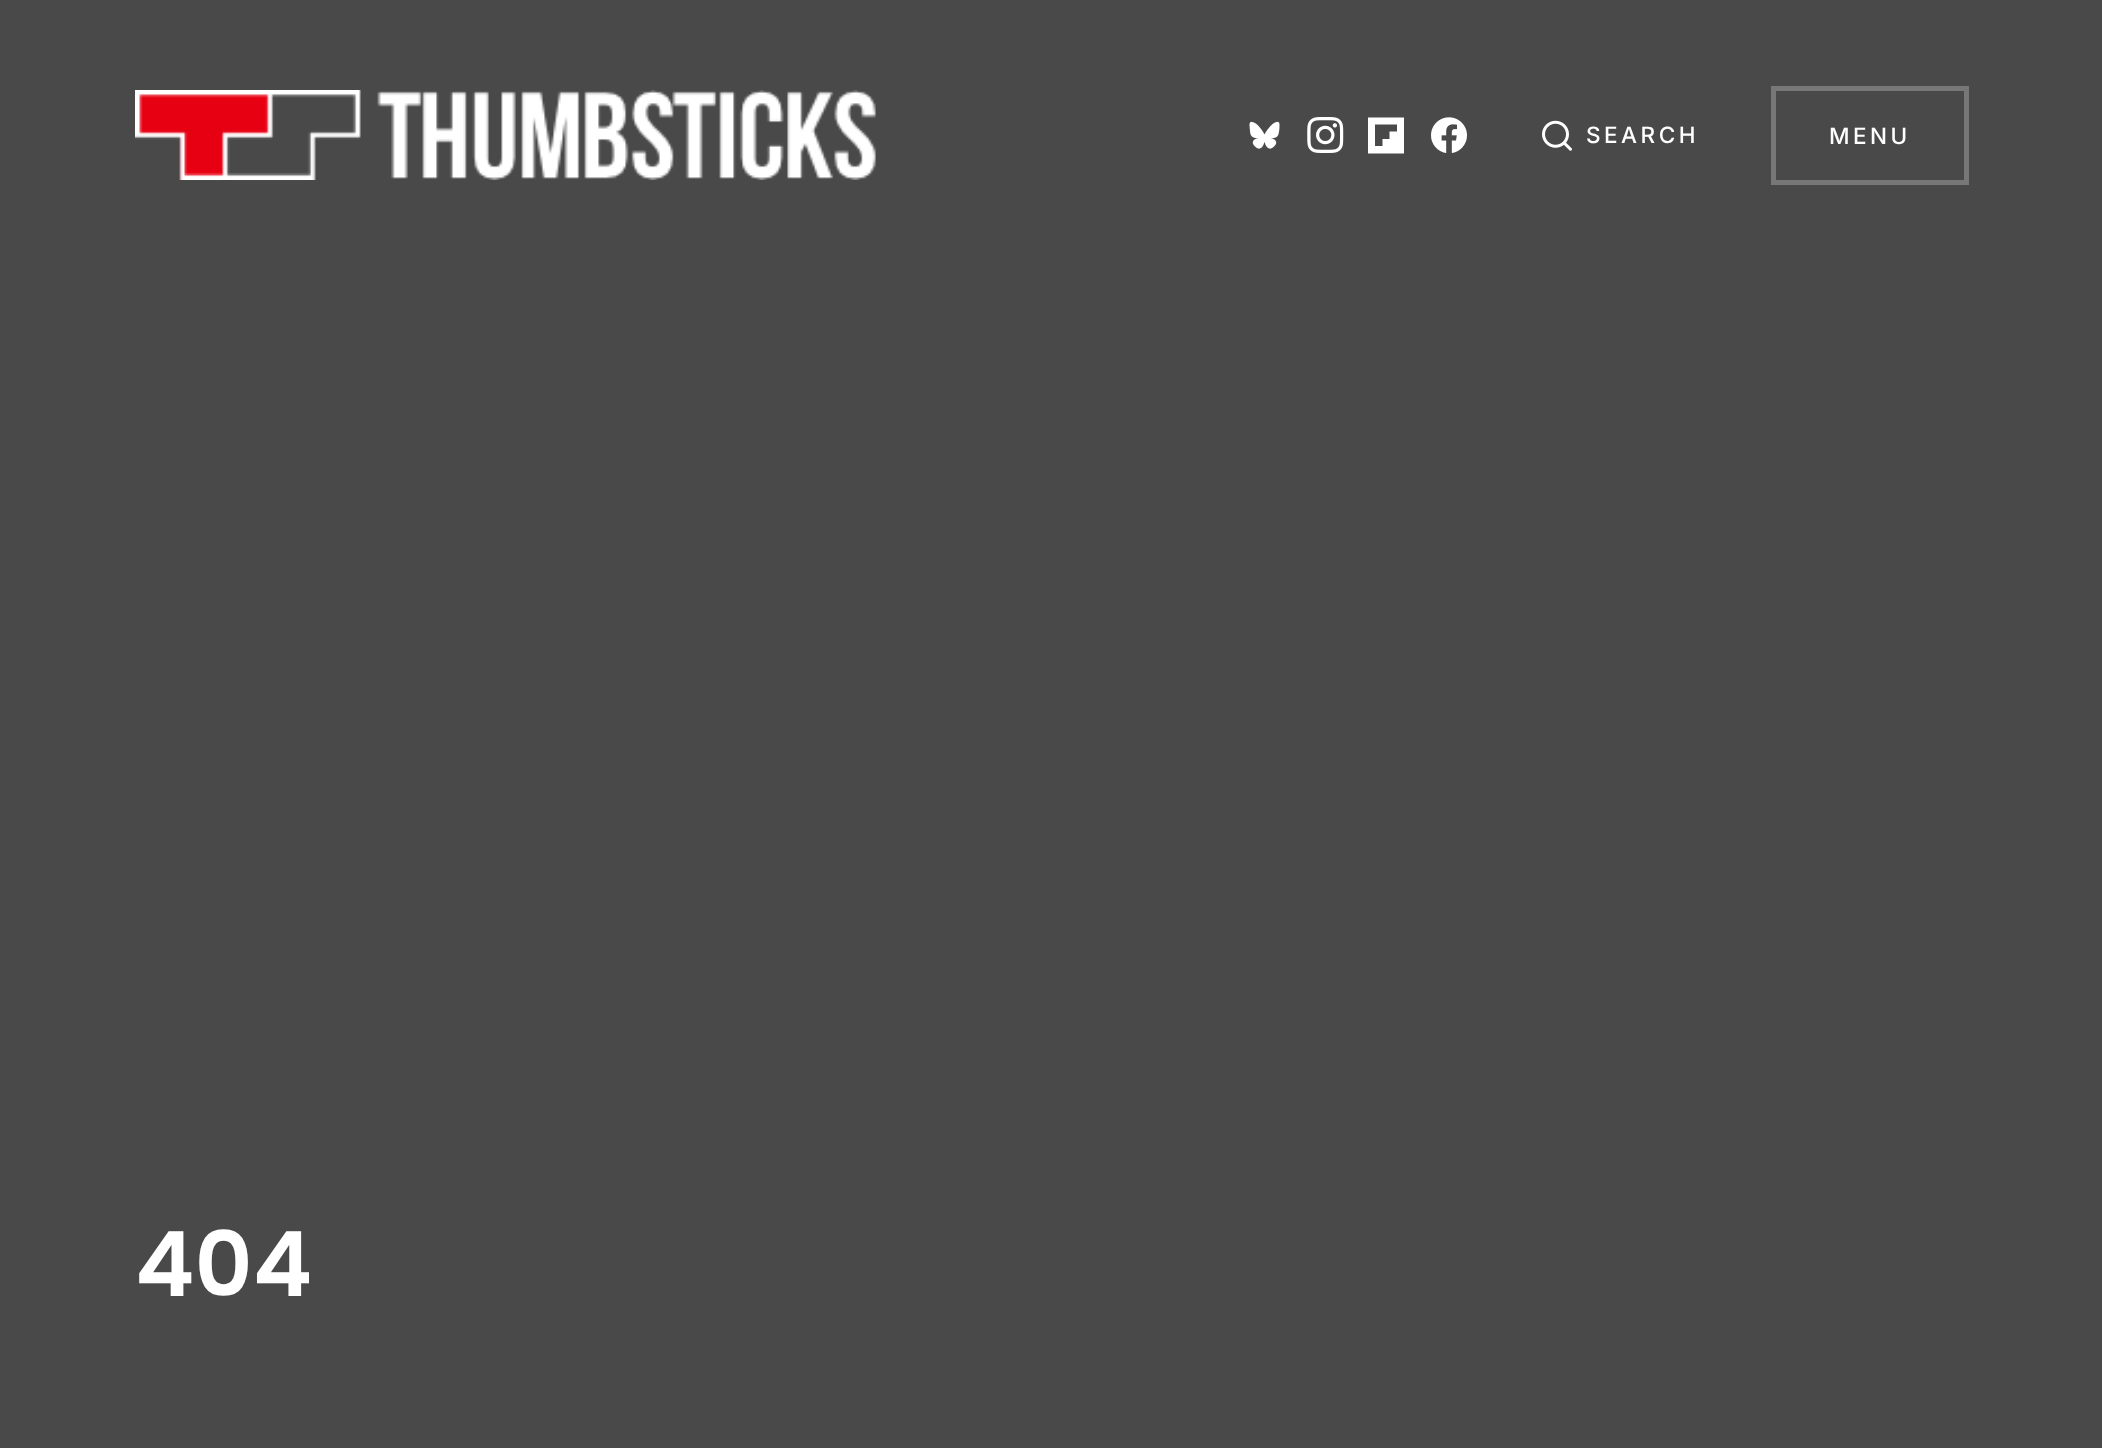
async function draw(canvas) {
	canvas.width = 2102;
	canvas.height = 1448;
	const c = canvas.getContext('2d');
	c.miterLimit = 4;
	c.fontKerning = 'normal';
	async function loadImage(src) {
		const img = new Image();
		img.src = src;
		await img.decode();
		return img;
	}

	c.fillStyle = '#494949';
	c.fillRect(0, 0, 2102, 1448);
	c.drawImage(await loadImage('img1.png'), 135, 90, 741, 90);
	c.drawImage(await loadImage('img2.png'), 1249, 121, 31, 28);
	c.drawImage(await loadImage('img3.png'), 1307, 117, 37, 36);
	c.fillStyle = '#fff';
	c.beginPath();
	c.moveTo(1368, 117.5);
	c.lineTo(1368, 153.5);
	c.lineTo(1404, 153.5);
	c.lineTo(1404, 117.5);
	c.closePath();
	c.moveTo(1397, 131.5);
	c.lineTo(1389.5, 131.5);
	c.lineTo(1389.5, 139);
	c.lineTo(1382.5, 139);
	c.lineTo(1382.5, 146);
	c.lineTo(1375, 146);
	c.lineTo(1375, 124.5);
	c.lineTo(1397, 124.5);
	c.closePath();
	c.fill();
	c.drawImage(await loadImage('img4.png'), 1431, 117, 36, 36);
	c.drawImage(await loadImage('img5.png'), 1542, 120, 30, 31);
	c.letterSpacing = '3.5px';
	c.font = '500 22.5px Inter';
	c.fillText('SEARCH', 1586, 143);
	c.strokeStyle = '#777';
	c.lineWidth = 5;
	c.strokeRect(1773.5, 88.5, 193, 94);
	c.fillText('MENU', 1829, 144);
	c.letterSpacing = '0px';
	c.font = '600 90px Poppins';
	c.fillText('404', 135, 1296);
}

draw(document.querySelector('canvas'));
